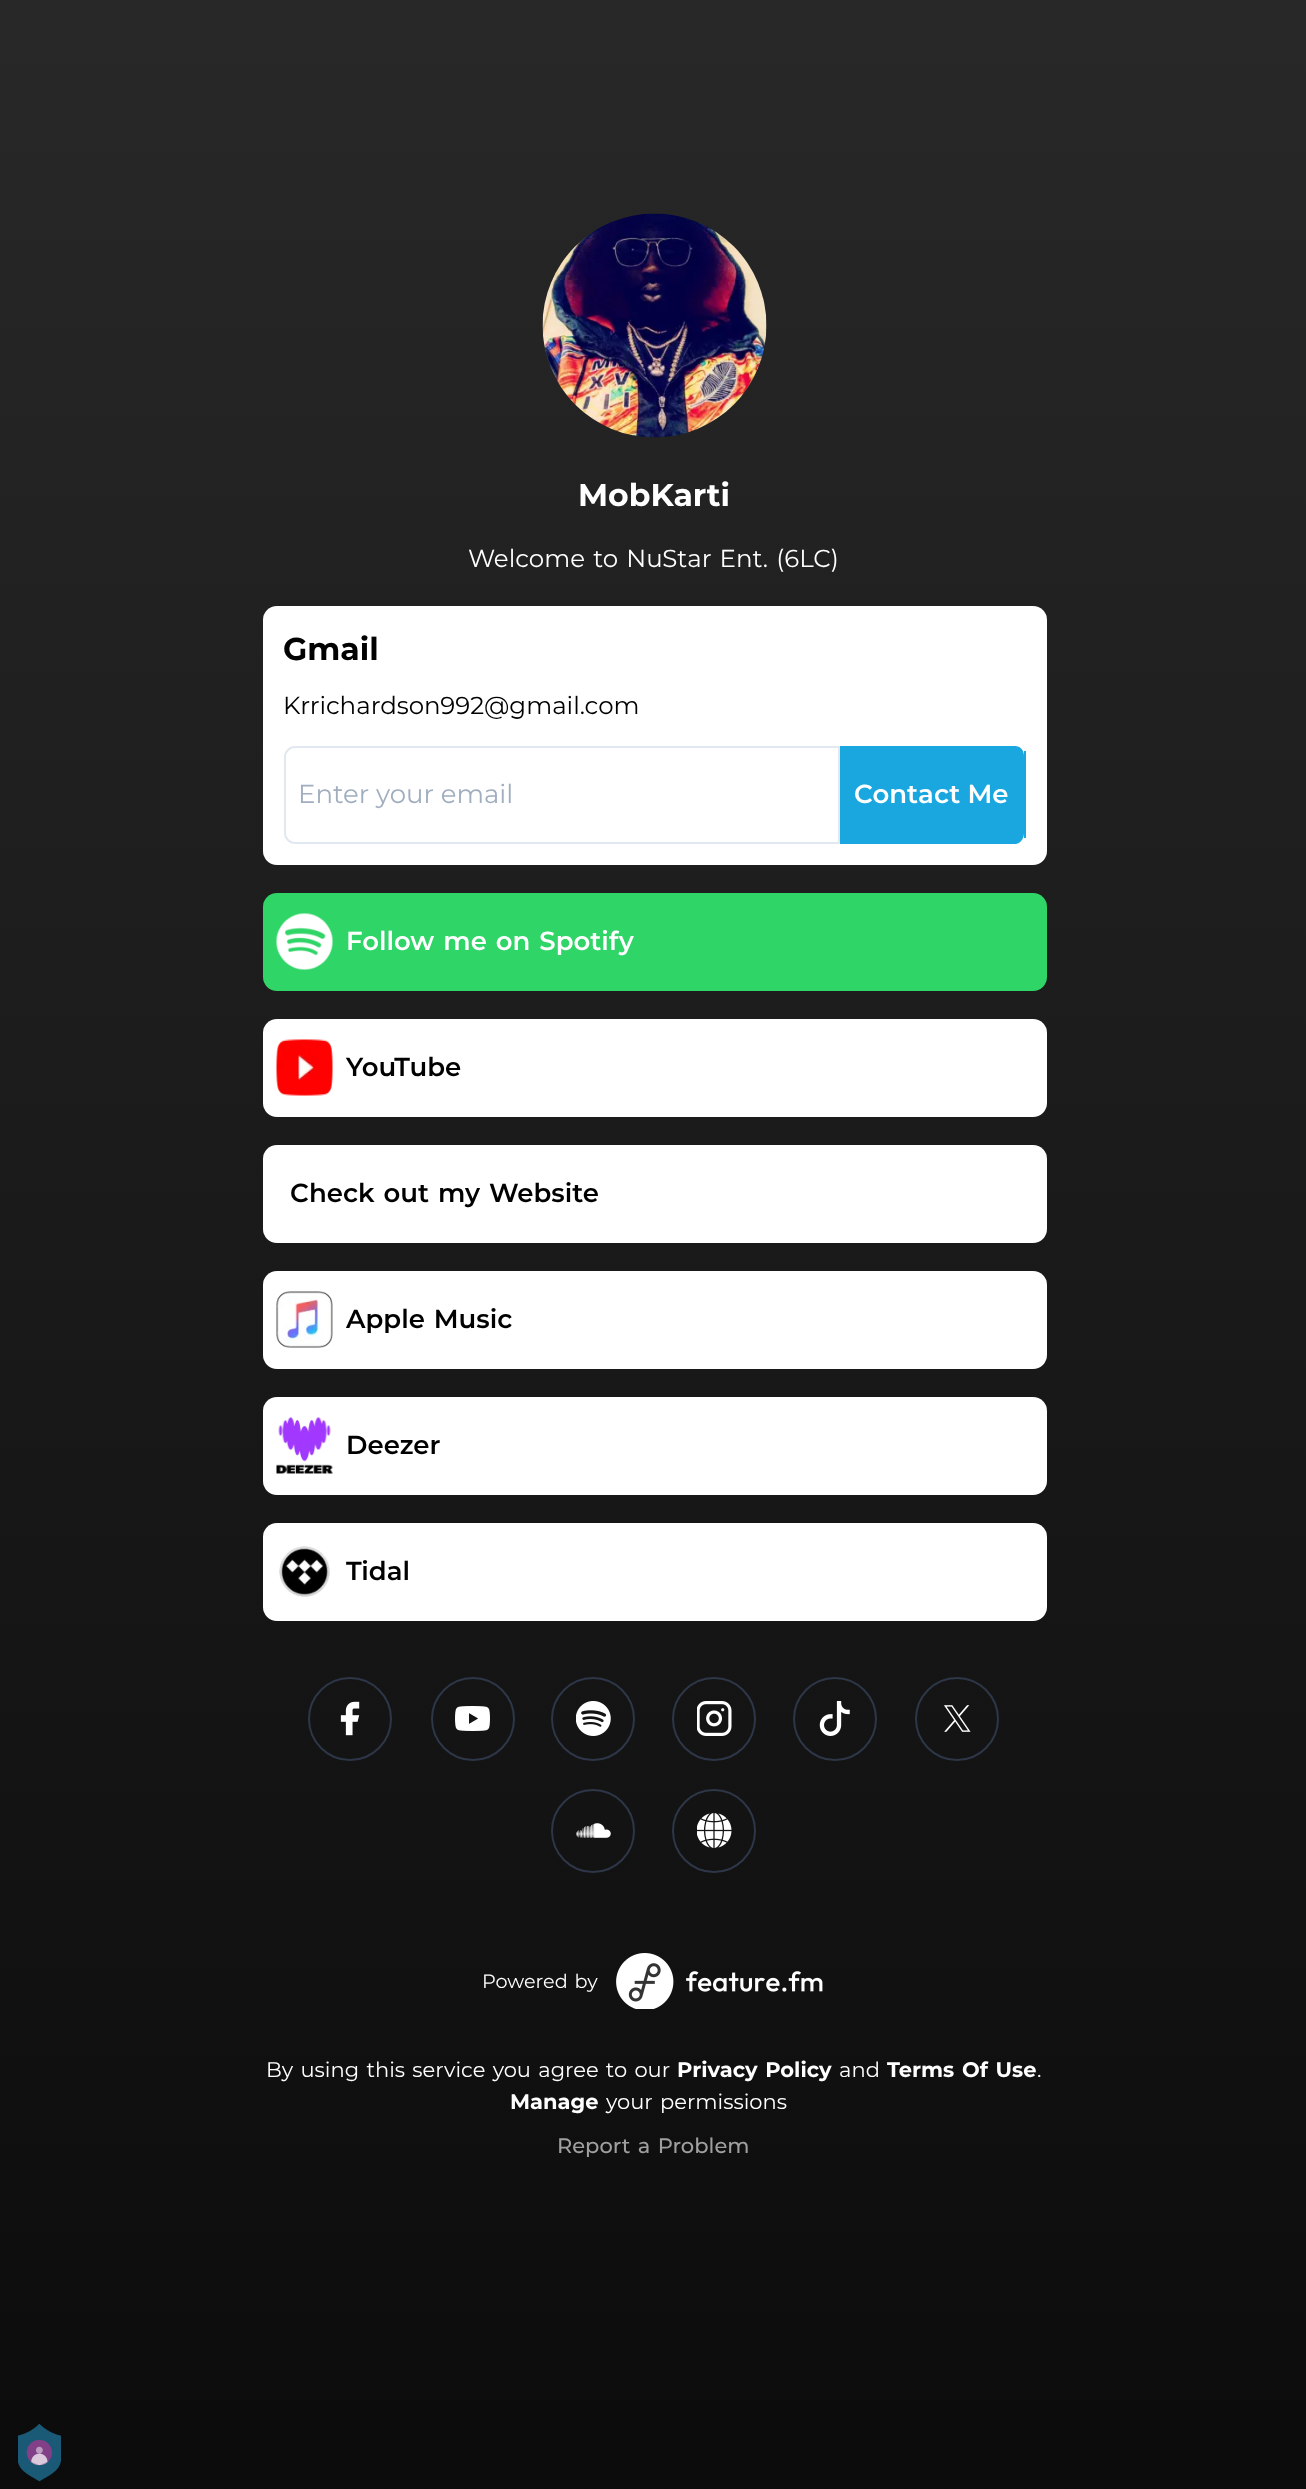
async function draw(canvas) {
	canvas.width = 1306;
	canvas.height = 2489;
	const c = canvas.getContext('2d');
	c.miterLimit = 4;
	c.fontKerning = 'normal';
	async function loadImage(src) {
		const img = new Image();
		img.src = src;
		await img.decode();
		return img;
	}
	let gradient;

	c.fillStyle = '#fff';
	c.fillRect(0, 0, 1306, 2489);
	gradient = c.createLinearGradient(654, 0, 654, 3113);
	gradient.addColorStop(0, '#282828');
	gradient.addColorStop(1, '#040404');
	c.fillStyle = gradient;
	c.fillRect(0, 0, 1306, 2489);
	c.drawImage(await loadImage('img1.png'), 542, 213, 225, 225);
	c.font = 'bold 31.5px Montserrat';
	c.fillStyle = '#fff';
	c.fillText('MobKarti', 578, 506);
	c.wordSpacing = '1.75px';
	c.font = '24.5px Montserrat';
	c.fillText('Welcome to NuStar Ent. (6LC)', 468, 567);
	c.beginPath();
	c.roundRect(263, 606, 784, 259, 14);
	c.fill();
	c.wordSpacing = '0px';
	c.font = 'bold 31.5px Montserrat';
	c.fillStyle = '#000';
	c.fillText('Gmail', 283, 660);
	c.font = '24.5px Montserrat';
	c.fillText('Krrichardson992@gmail.com', 283, 714);
	c.beginPath();
	c.roundRect(285, 747, 554, 96, [10, 0, 0, 10]);
	c.strokeStyle = '#e2e8f0';
	c.lineWidth = 2;
	c.stroke();
	c.font = '26px Montserrat';
	c.fillStyle = '#a0aec0';
	c.fillText('Enter your email', 298, 803);
	c.fillStyle = '#1aa7e0';
	c.beginPath();
	c.moveTo(840, 746);
	c.lineTo(1015, 746);
	c.bezierCurveTo(1020, 746, 1024, 750, 1024, 756);
	c.lineTo(1024, 833);
	c.bezierCurveTo(1024, 839, 1020, 844, 1015, 844);
	c.lineTo(840, 844);
	c.closePath();
	c.fill();
	c.fillRect(1024, 751, 2, 87);
	c.font = '600 26px Montserrat';
	c.fillStyle = '#fff';
	c.fillText('Contact Me', 854, 803);
	c.fillStyle = '#30d567';
	c.beginPath();
	c.roundRect(263, 893, 784, 98, 14);
	c.fill();
	c.drawImage(await loadImage('img2.png'), 276, 913, 57, 57);
	c.wordSpacing = '1.75px';
	c.fillStyle = '#fff';
	c.fillText('Follow me on Spotify', 346, 950);
	c.beginPath();
	c.roundRect(263, 1019, 784, 98, 14);
	c.fill();
	c.drawImage(await loadImage('img3.png'), 276, 1039, 57, 57);
	c.wordSpacing = '0px';
	c.fillStyle = '#000';
	c.fillText('YouTube', 346, 1076);
	c.fillStyle = '#fff';
	c.beginPath();
	c.roundRect(263, 1145, 784, 98, 14);
	c.fill();
	c.wordSpacing = '1.75px';
	c.fillStyle = '#000';
	c.fillText('Check out my Website', 290, 1202);
	c.fillStyle = '#fff';
	c.beginPath();
	c.roundRect(263, 1271, 784, 98, 14);
	c.fill();
	c.drawImage(await loadImage('img4.png'), 276, 1291, 57, 57);
	c.fillStyle = '#000';
	c.fillText('Apple Music', 346, 1328);
	c.fillStyle = '#fff';
	c.beginPath();
	c.roundRect(263, 1397, 784, 98, 14);
	c.fill();
	c.drawImage(await loadImage('img5.png'), 276, 1417, 57, 57);
	c.wordSpacing = '0px';
	c.fillStyle = '#000';
	c.fillText('Deezer', 346, 1454);
	c.fillStyle = '#fff';
	c.beginPath();
	c.roundRect(263, 1523, 784, 98, 14);
	c.fill();
	c.drawImage(await loadImage('img6.png'), 279, 1546, 51, 51);
	c.fillStyle = '#000';
	c.fillText('Tidal', 346, 1580);
	c.beginPath();
	c.arc(350, 1719, 41, 0, 2 * Math.PI);
	c.strokeStyle = '#2d3748';
	c.stroke();
	c.drawImage(await loadImage('img7.png'), 340, 1701, 20, 35);
	c.beginPath();
	c.arc(473, 1719, 41, 0, 2 * Math.PI);
	c.stroke();
	c.drawImage(await loadImage('img8.png'), 455, 1706, 35, 25);
	c.beginPath();
	c.arc(593, 1719, 41, 0, 2 * Math.PI);
	c.stroke();
	c.drawImage(await loadImage('img9.png'), 576, 1701, 35, 35);
	c.beginPath();
	c.arc(714, 1719, 41, 0, 2 * Math.PI);
	c.stroke();
	c.drawImage(await loadImage('img10.png'), 697, 1701, 35, 35);
	c.beginPath();
	c.arc(835, 1719, 41, 0, 2 * Math.PI);
	c.stroke();
	c.drawImage(await loadImage('img11.png'), 819, 1701, 31, 35);
	c.beginPath();
	c.arc(957, 1719, 41, 0, 2 * Math.PI);
	c.stroke();
	c.drawImage(await loadImage('img12.png'), 944, 1705, 27, 27);
	c.beginPath();
	c.arc(593, 1831, 41, 0, 2 * Math.PI);
	c.stroke();
	c.drawImage(await loadImage('img13.png'), 576, 1823, 35, 15);
	c.beginPath();
	c.arc(714, 1831, 41, 0, 2 * Math.PI);
	c.stroke();
	c.drawImage(await loadImage('img14.png'), 697, 1813, 35, 35);
	c.wordSpacing = '1.75px';
	c.font = '19.25px Montserrat';
	c.fillStyle = '#fff';
	c.fillText('Powered by', 482, 1988);
	c.drawImage(await loadImage('img15.png'), 616, 1953, 207, 56);
	c.font = '21px Montserrat';
	c.fillText('By using this service you agree to our', 266, 2077);
	c.font = 'bold 21px Montserrat';
	c.fillText('Privacy Policy', 677, 2077);
	c.wordSpacing = '0px';
	c.font = '21px Montserrat';
	c.fillText('and', 839, 2077);
	c.wordSpacing = '1.75px';
	c.font = 'bold 21px Montserrat';
	c.fillText('Terms Of Use', 887, 2077);
	c.wordSpacing = '0px';
	c.font = '21px Montserrat';
	c.fillText('.', 1037, 2077);
	c.font = 'bold 21px Montserrat';
	c.fillText('Manage', 510, 2109);
	c.wordSpacing = '1.75px';
	c.font = '21px Montserrat';
	c.fillText('your permissions', 606, 2109);
	c.font = '500 21px Montserrat';
	c.fillStyle = '#9f9f9f';
	c.fillText('Report a Problem', 557, 2153);
	c.drawImage(await loadImage('img16.png'), 18, 2424, 43, 58);
}

draw(document.querySelector('canvas'));
